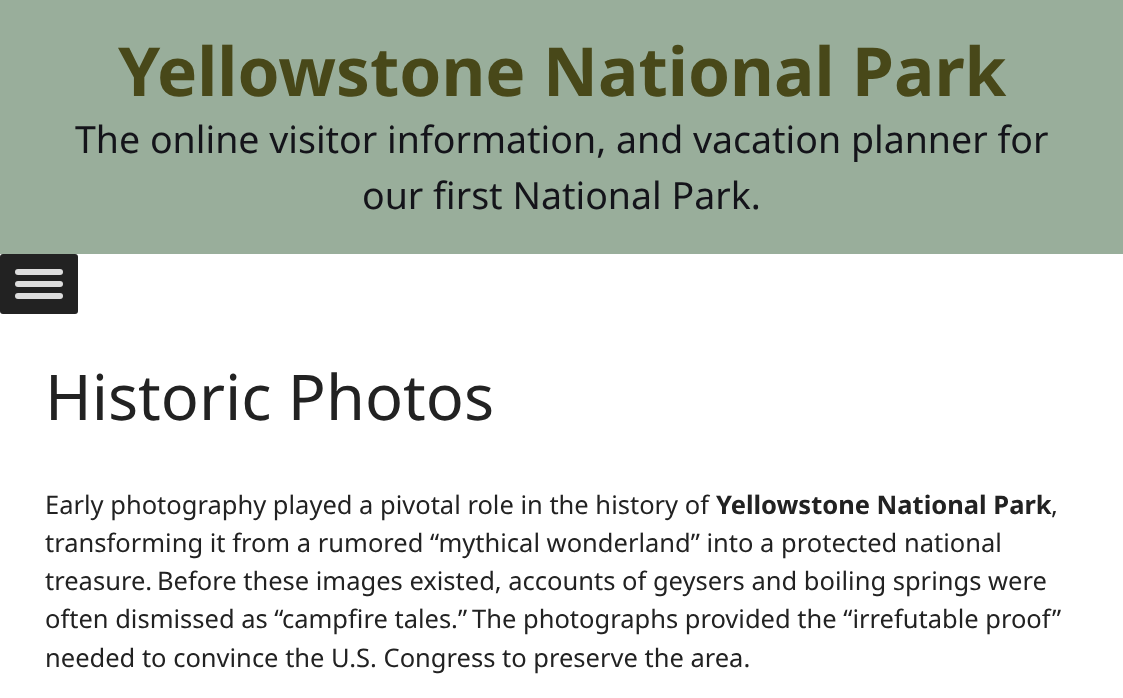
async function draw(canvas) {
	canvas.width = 1123;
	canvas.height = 698;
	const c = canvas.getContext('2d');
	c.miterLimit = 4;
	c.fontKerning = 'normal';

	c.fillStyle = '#fff';
	c.fillRect(0, 0, 1123, 698);
	c.fillStyle = '#99ae9b';
	c.fillRect(0, 0, 1123, 254);
	c.font = 'bold 67.5px Noto Sans';
	c.fillStyle = '#484819';
	c.fillText('Yellowstone National Park', 118, 96);
	c.font = '37.5px Noto Sans';
	c.fillStyle = '#14141a';
	c.fillText('The online visitor information, and vacation planner for', 75, 153);
	c.fillText('our first National Park.', 362, 209);
	c.fillStyle = '#222';
	c.beginPath();
	c.roundRect(0, 254, 78, 60, 3);
	c.fill();
	c.fillStyle = '#ddd';
	c.beginPath();
	c.roundRect(15, 269, 48, 6, 3);
	c.fill();
	c.beginPath();
	c.roundRect(15, 281, 48, 6, 3);
	c.fill();
	c.beginPath();
	c.roundRect(15, 293, 48, 6, 3);
	c.fill();
	c.font = '63px Noto Sans';
	c.fillStyle = '#222';
	c.fillText('Historic Photos', 45, 420);
	c.font = '25.5px Noto Sans';
	c.fillText('Early photography played a pivotal role in the history of', 45, 514);
	c.font = 'bold 25.5px Noto Sans';
	c.fillText('Yellowstone National Park', 716, 514);
	c.font = '25.5px Noto Sans';
	for (const [text, x, y] of [
		[',', 1051, 514],
		['transforming it from a rumored “mythical wonderland” into a protected national', 45, 552],
		['treasure.', 45, 590],
		['Before these images existed, accounts of geysers and boiling springs were', 157, 590],
		['often dismissed as “campfire tales.”', 45, 628],
		['The photographs provided the “irrefutable proof”', 472, 628],
		['needed to convince the U.S. Congress to preserve the area.', 45, 667],
	]) {
		c.fillText(text, x, y);
	}
}

draw(document.querySelector('canvas'));
